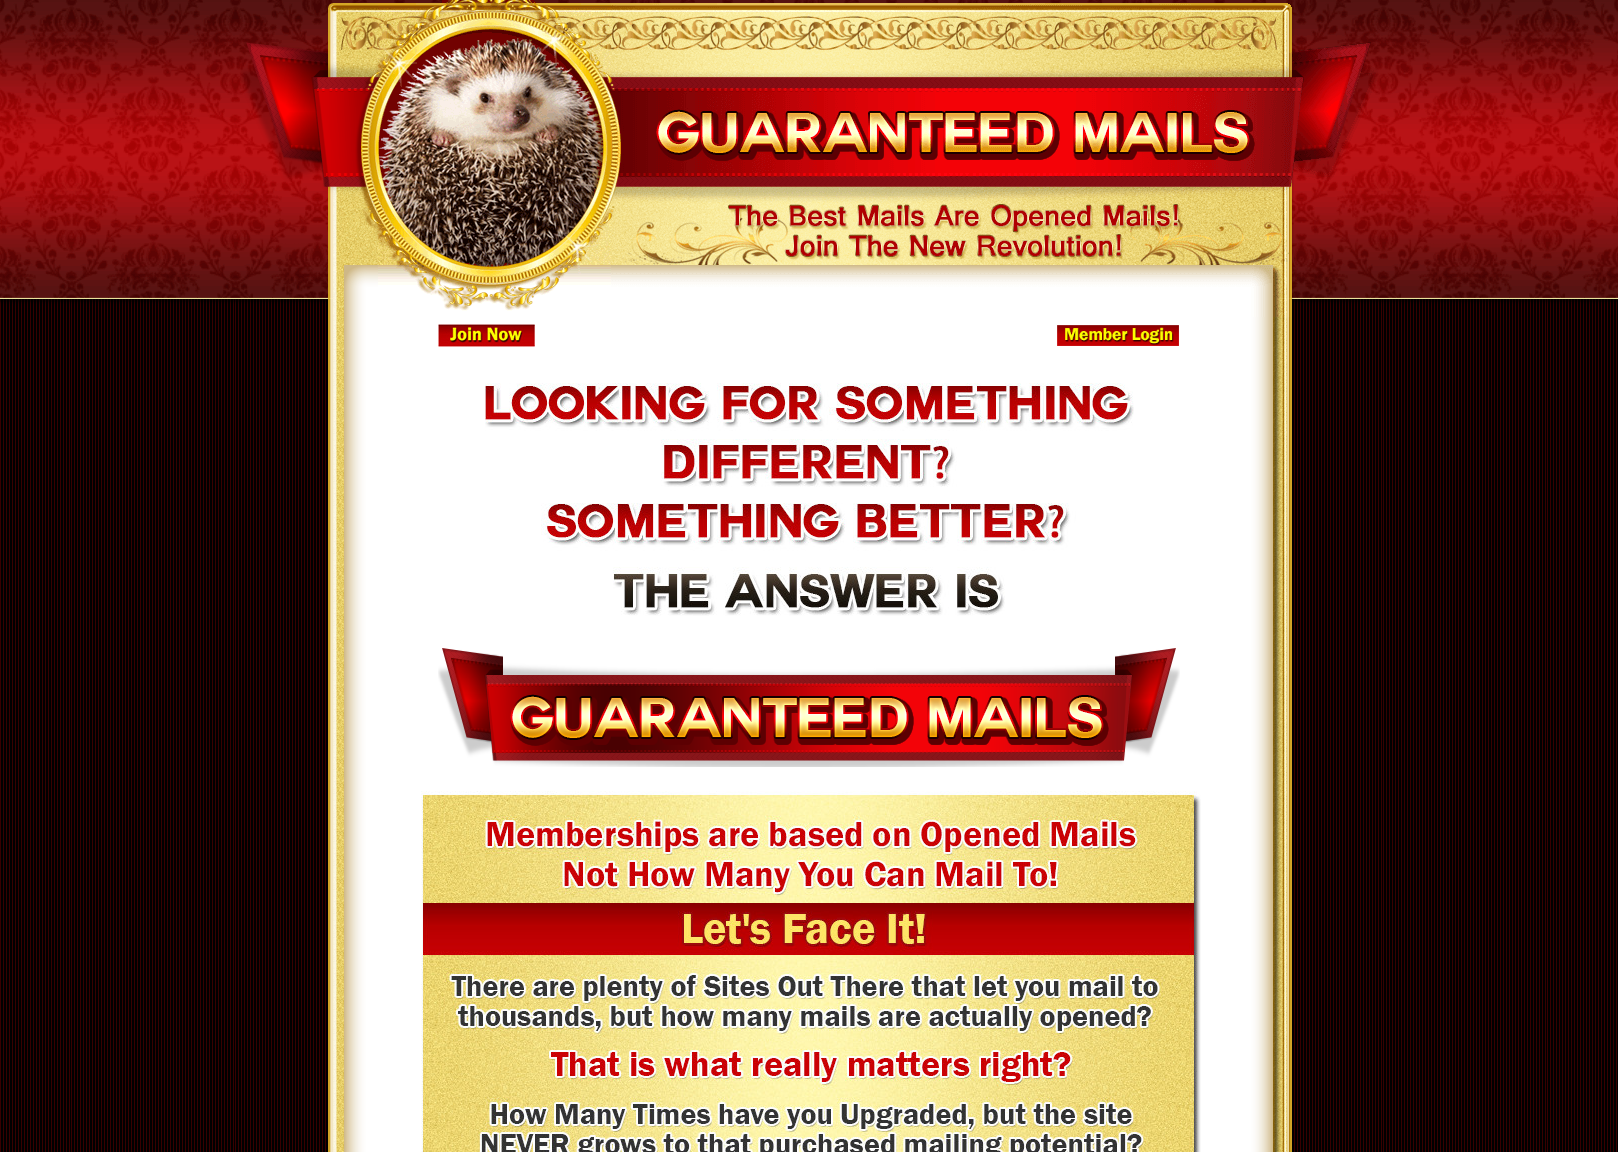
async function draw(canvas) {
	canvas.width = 1618;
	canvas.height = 1152;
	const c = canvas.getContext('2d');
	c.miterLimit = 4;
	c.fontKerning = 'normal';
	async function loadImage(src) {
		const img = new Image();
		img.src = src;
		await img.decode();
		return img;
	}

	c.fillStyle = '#fff';
	c.fillRect(0, 0, 1618, 1152);
	c.drawImage(await loadImage('img1.png'), 0, 0, 1618, 1152);
	c.drawImage(await loadImage('img2.png'), 240, 3, 138, 314);
	c.drawImage(await loadImage('img3.png'), 378, 0, 233, 317);
	c.drawImage(await loadImage('img4.png'), 611, 3, 767, 314);
	c.drawImage(await loadImage('img5.png'), 328, 317, 964, 835);
	c.drawImage(await loadImage('img6.png'), 437, 324, 98, 23);
	c.drawImage(await loadImage('img7.png'), 1057, 325, 122, 21);
	c.drawImage(await loadImage('img8.png'), 485, 383, 649, 233);
	c.drawImage(await loadImage('img9.png'), 438, 648, 742, 119);
	c.drawImage(await loadImage('img10.png'), 421, 791, 780, 250);
	c.drawImage(await loadImage('img11.png'), 421, 1041, 780, 111);
}

draw(document.querySelector('canvas'));
